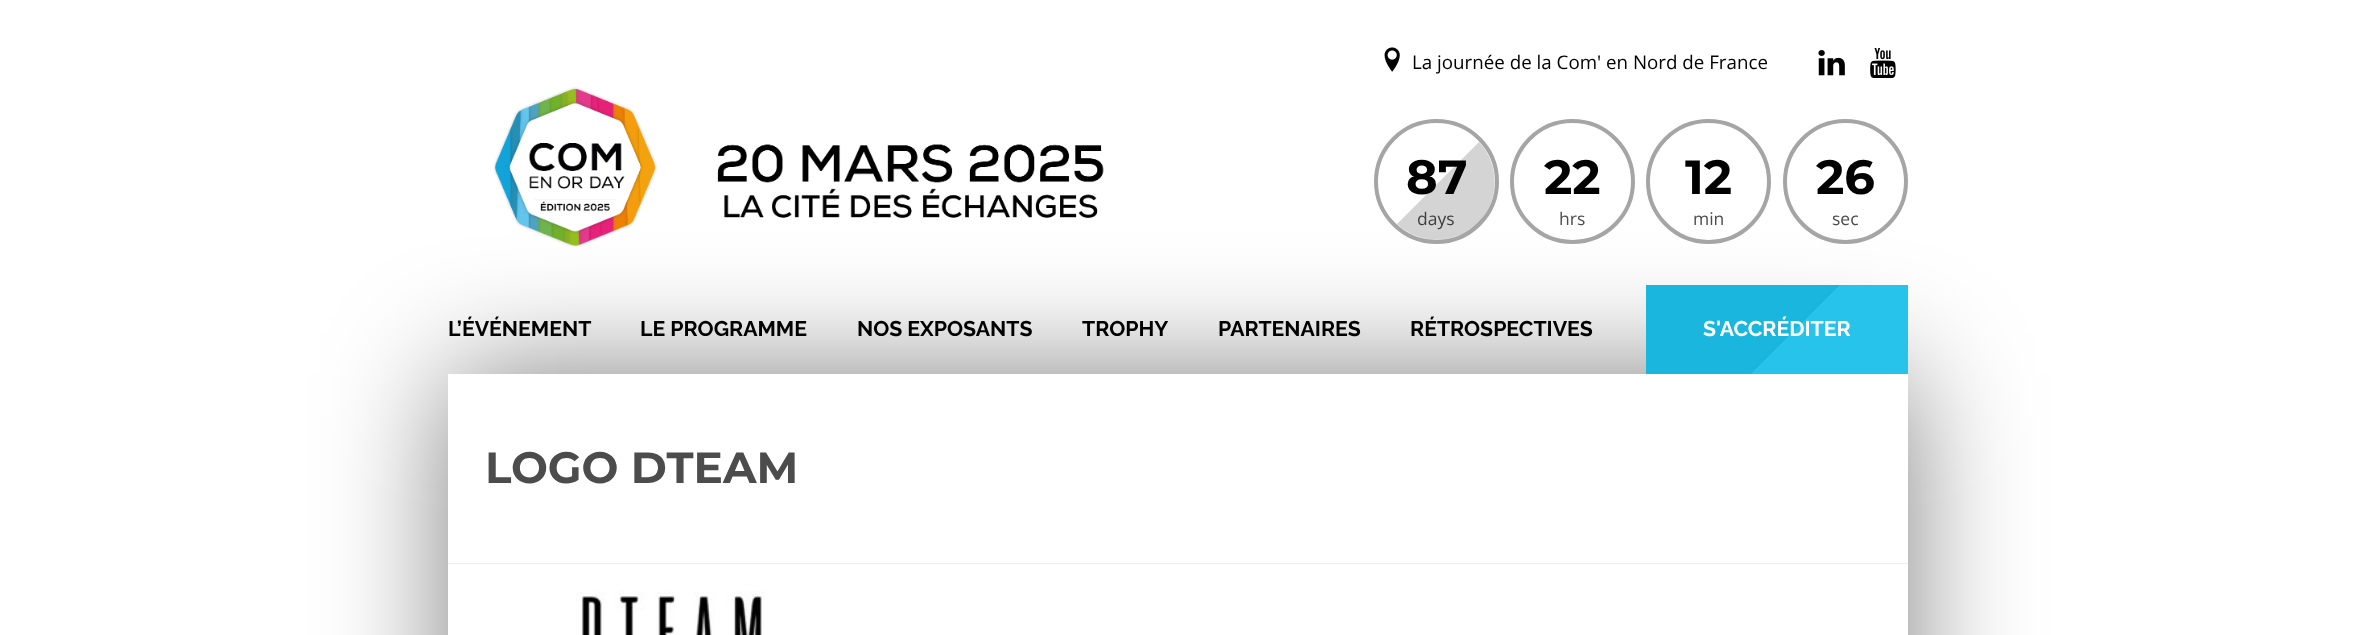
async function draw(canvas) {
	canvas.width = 2354;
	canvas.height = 635;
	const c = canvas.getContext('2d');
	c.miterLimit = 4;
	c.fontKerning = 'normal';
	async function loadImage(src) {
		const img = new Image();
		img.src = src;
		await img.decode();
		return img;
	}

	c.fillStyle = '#fff';
	c.fillRect(0, 0, 2354, 635);
	c.fillStyle = '#00000080';
	c.filter = 'blur(62.5px)';
	c.beginPath();
	c.rect(448, 374, 1460, 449);
	c.fill();
	c.filter = 'none';
	c.drawImage(await loadImage('img1.png'), 493, 87, 611, 160);
	c.drawImage(await loadImage('img2.png'), 1384, 47, 16, 25);
	c.font = '18.75px Open Sans';
	c.fillStyle = '#000';
	c.fillText('La journée de la Com\' en Nord de France', 1412, 69);
	c.drawImage(await loadImage('img3.png'), 1818, 50, 27, 26);
	c.drawImage(await loadImage('img4.png'), 1870, 48, 26, 30);
	c.beginPath();
	c.arc(1436.5, 181.5, 60.5, 0, 2 * Math.PI);
	c.strokeStyle = '#a5a5a5';
	c.lineWidth = 4;
	c.stroke();
	c.font = 'bold 48px Montserrat';
	c.fillText('87', 1406, 194);
	c.fillStyle = '#0000002b';
	c.beginPath();
	c.moveTo(1479, 142);
	c.bezierCurveTo(1500, 164, 1500, 201, 1478, 223);
	c.bezierCurveTo(1456, 245, 1419, 245, 1397, 224);
	c.closePath();
	c.fill();
	c.font = '17.5px Open Sans';
	c.fillStyle = '#3f3f3f';
	c.fillText('days', 1417, 225);
	c.beginPath();
	c.arc(1572.5, 181.5, 60.5, 0, 2 * Math.PI);
	c.stroke();
	c.font = 'bold 48px Montserrat';
	c.fillStyle = '#000';
	c.fillText('22', 1544, 194);
	c.font = '17.5px Open Sans';
	c.fillStyle = '#4c4c4c';
	c.fillText('hrs', 1559, 225);
	c.beginPath();
	c.arc(1708.5, 181.5, 60.5, 0, 2 * Math.PI);
	c.stroke();
	c.font = 'bold 48px Montserrat';
	c.fillStyle = '#000';
	c.fillText('12', 1685, 194);
	c.font = '17.5px Open Sans';
	c.fillStyle = '#4c4c4c';
	c.fillText('min', 1693, 225);
	c.beginPath();
	c.arc(1845.5, 181.5, 60.5, 0, 2 * Math.PI);
	c.stroke();
	c.font = 'bold 48px Montserrat';
	c.fillStyle = '#000';
	c.fillText('26', 1816, 194);
	c.font = '17.5px Open Sans';
	c.fillStyle = '#4c4c4c';
	c.fillText('sec', 1832, 225);
	c.font = 'bold 21.25px Raleway';
	c.fillStyle = '#000';
	for (const [text, x, y] of [
		['L’ÉVÉNEMENT', 448, 336],
		['LE PROGRAMME', 640, 336],
		['NOS EXPOSANTS', 857, 336],
		['TROPHY', 1082, 336],
		['PARTENAIRES', 1218, 336],
		['RÉTROSPECTIVES', 1410, 336],
	]) {
		c.fillText(text, x, y);
	}
	c.fillStyle = '#1ab6de';
	c.fillRect(1646, 285, 194, 89);
	c.save();
	c.beginPath();
	c.rect(1751, 285, 157, 89);
	c.clip();
	c.fillStyle = '#28c3eb';
	c.beginPath();
	c.moveTo(1751, 374);
	c.lineTo(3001, -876);
	c.lineTo(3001, 374);
	c.closePath();
	c.fill();
	c.restore();
	c.fillStyle = '#fff';
	c.fillText('S\'ACCRÉDITER', 1703, 336);
	c.fillRect(448, 374, 1460, 261);
	c.fillStyle = '#ededed';
	c.fillRect(448, 563, 1460, 1);
	c.font = 'bold 43.75px Montserrat';
	c.fillStyle = '#4c4c4c';
	c.fillText('LOGO DTEAM', 485, 483);
	c.drawImage(await loadImage('img5.png'), 576, 591, 189, 44);
}

draw(document.querySelector('canvas'));
